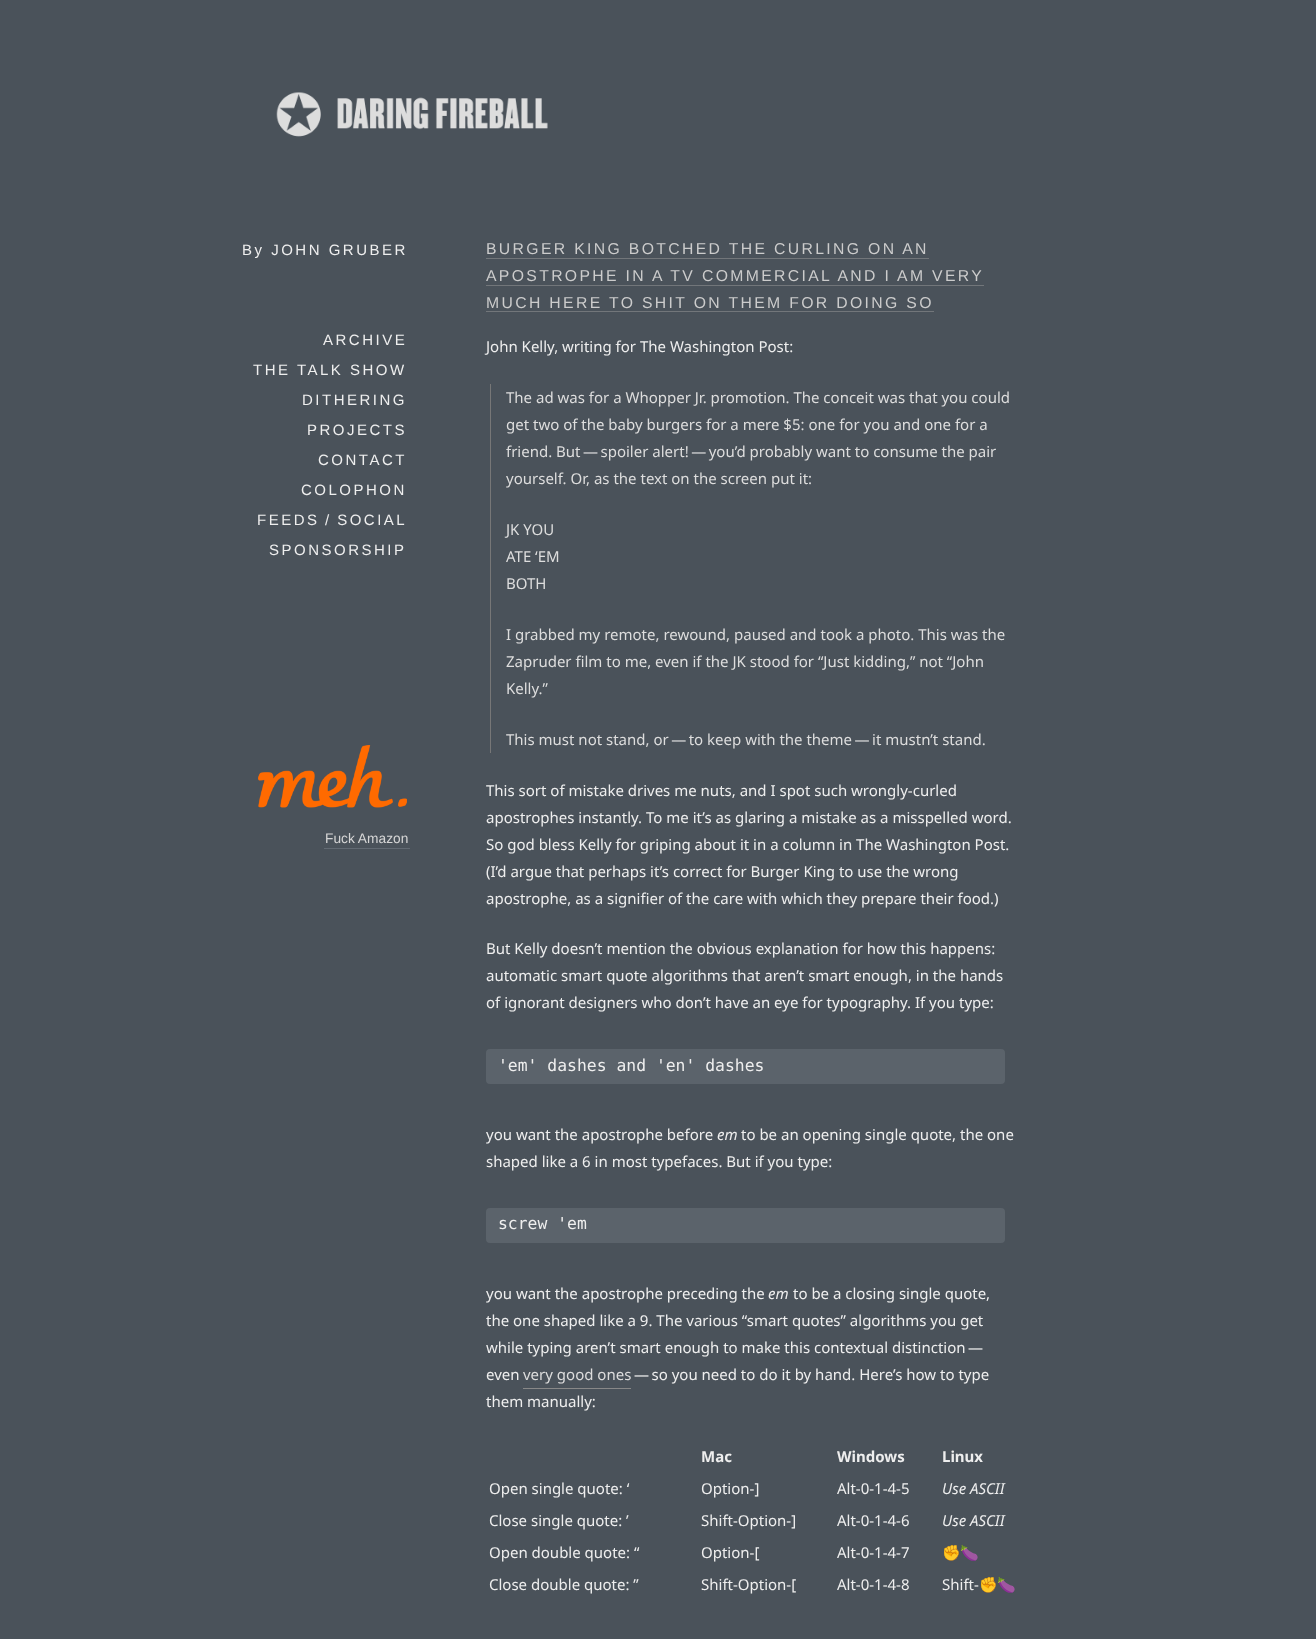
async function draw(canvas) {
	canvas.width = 1316;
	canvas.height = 1639;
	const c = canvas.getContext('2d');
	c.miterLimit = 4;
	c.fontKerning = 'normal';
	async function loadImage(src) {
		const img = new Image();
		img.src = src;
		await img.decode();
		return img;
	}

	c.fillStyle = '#4a525a';
	c.fillRect(0, 0, 1316, 1639);
	c.drawImage(await loadImage('img1.png'), 276, 92, 272, 45);
	c.letterSpacing = '2.5px';
	c.font = '15px Liberation Sans';
	c.fillStyle = '#eee';
	for (const [text, x, y] of [
		['By JOHN GRUBER', 242, 255],
		['ARCHIVE', 323, 345],
		['THE TALK SHOW', 253, 375],
		['DITHERING', 302, 405],
		['PROJECTS', 307, 435],
		['CONTACT', 318, 465],
		['COLOPHON', 301, 495],
		['FEEDS / SOCIAL', 257, 525],
		['SPONSORSHIP', 269, 555],
	]) {
		c.fillText(text, x, y);
	}
	c.drawImage(await loadImage('img2.png'), 258, 745, 149, 63);
	c.letterSpacing = '0px';
	c.font = '13.75px Liberation Sans';
	c.fillStyle = '#d5d5d5';
	c.fillText('Fuck Amazon', 325, 843);
	c.fillStyle = '#626a73';
	c.fillRect(324, 848, 86, 1);
	c.letterSpacing = '2.35px';
	c.font = '15.75px Liberation Sans';
	c.fillStyle = '#ccc';
	c.fillText('BURGER KING BOTCHED THE CURLING ON AN', 486, 254);
	c.fillStyle = '#72767a';
	c.fillRect(486, 258, 443, 1);
	c.fillStyle = '#ccc';
	c.fillText('APOSTROPHE IN A TV COMMERCIAL AND I AM VERY', 486, 281);
	c.fillStyle = '#72767a';
	c.fillRect(486, 285, 498, 1);
	c.fillStyle = '#ccc';
	c.fillText('MUCH HERE TO SHIT ON THEM FOR DOING SO', 486, 308);
	c.fillStyle = '#72767a';
	c.fillRect(486, 311, 448, 1);
	c.letterSpacing = '0px';
	c.font = '15px Noto Sans';
	c.fillStyle = '#eee';
	c.fillText('John Kelly, writing for The Washington Post:', 486, 352);
	c.fillStyle = '#777';
	c.fillRect(490, 384, 1, 369);
	c.fillStyle = '#ddd';
	for (const [text, x, y] of [
		['The ad was for a Whopper Jr. promotion. The conceit was that you could', 506, 403],
		['get two of the baby burgers for a mere $5: one for you and one for a', 506, 430],
		['friend. But — spoiler alert! — you’d probably want to consume the pair', 506, 457],
		['yourself. Or, as the text on the screen put it:', 506, 484],
		['JK YOU', 506, 535],
		['ATE ‘EM', 506, 562],
		['BOTH', 506, 589],
		['I grabbed my remote, rewound, paused and took a photo. This was the', 506, 640],
		['Zapruder film to me, even if the JK stood for “Just kidding,” not “John', 506, 667],
		['Kelly.”', 506, 694],
		['This must not stand, or — to keep with the theme — it mustn’t stand.', 506, 745],
	]) {
		c.fillText(text, x, y);
	}
	c.fillStyle = '#eee';
	for (const [text, x, y] of [
		['This sort of mistake drives me nuts, and I spot such wrongly-curled', 486, 796],
		['apostrophes instantly. To me it’s as glaring a mistake as a misspelled word.', 486, 823],
		['So god bless Kelly for griping about it in a column in The Washington Post.', 486, 850],
		['(I’d argue that perhaps it’s correct for Burger King to use the wrong', 486, 877],
		['apostrophe, as a signifier of the care with which they prepare their food.)', 486, 904],
		['But Kelly doesn’t mention the obvious explanation for how this happens:', 486, 954],
		['automatic smart quote algorithms that aren’t smart enough, in the hands', 486, 981],
		['of ignorant designers who don’t have an eye for typography. If you type:', 486, 1008],
	]) {
		c.fillText(text, x, y);
	}
	c.fillStyle = '#5b636b';
	c.beginPath();
	c.roundRect(486, 1049, 519, 35, 4);
	c.fill();
	c.font = '16.4px DejaVu Sans Mono';
	c.fillStyle = '#eee';
	c.fillText('\'em\' dashes and \'en\' dashes', 498, 1071);
	c.font = '15px Noto Sans';
	c.fillText('you want the apostrophe before', 486, 1140);
	c.font = 'italic 15px Noto Sans';
	c.fillText('em', 717, 1140);
	c.font = '15px Noto Sans';
	c.fillText('to be an opening single quote, the one', 741, 1140);
	c.fillText('shaped like a 6 in most typefaces. But if you type:', 486, 1167);
	c.fillStyle = '#5b636b';
	c.beginPath();
	c.roundRect(486, 1208, 519, 35, 4);
	c.fill();
	c.font = '16.4px DejaVu Sans Mono';
	c.fillStyle = '#eee';
	c.fillText('screw \'em', 498, 1229);
	c.font = '15px Noto Sans';
	c.fillText('you want the apostrophe preceding the', 486, 1299);
	c.font = 'italic 15px Noto Sans';
	c.fillText('em', 768, 1299);
	c.font = '15px Noto Sans';
	for (const [text, x, y] of [
		['to be a closing single quote,', 793, 1299],
		['the one shaped like a 9. The various “smart quotes” algorithms you get', 486, 1326],
		['while typing aren’t smart enough to make this contextual distinction —', 486, 1353],
		['even', 486, 1380],
	]) {
		c.fillText(text, x, y);
	}
	c.fillStyle = '#ddd';
	c.fillText('very good ones', 523, 1380);
	c.fillStyle = '#888';
	c.fillRect(523, 1388, 108, 1);
	c.fillStyle = '#eee';
	c.fillText('— so you need to do it by hand. Here’s how to type', 634, 1380);
	c.fillText('them manually:', 486, 1407);
	c.font = 'bold 15px Noto Sans';
	for (const [text, x, y] of [
		['Mac', 701, 1462],
		['Windows', 837, 1462],
		['Linux', 942, 1462],
	]) {
		c.fillText(text, x, y);
	}
	c.font = '15px Noto Sans';
	for (const [text, x, y] of [
		['Open single quote: ‘', 489, 1494],
		['Option-]', 701, 1494],
		['Alt-0-1-4-5', 837, 1494],
	]) {
		c.fillText(text, x, y);
	}
	c.font = 'italic 15px Noto Sans';
	c.fillText('Use ASCII', 942, 1494);
	c.font = '15px Noto Sans';
	for (const [text, x, y] of [
		['Close single quote: ’', 489, 1526],
		['Shift-Option-]', 701, 1526],
		['Alt-0-1-4-6', 837, 1526],
	]) {
		c.fillText(text, x, y);
	}
	c.font = 'italic 15px Noto Sans';
	c.fillText('Use ASCII', 942, 1526);
	c.font = '15px Noto Sans';
	for (const [text, x, y] of [
		['Open double quote: “', 489, 1558],
		['Option-[', 701, 1558],
		['Alt-0-1-4-7', 837, 1558],
	]) {
		c.fillText(text, x, y);
	}
	c.font = '15px Noto Color Emoji';
	c.fillText('✊🍆', 942, 1558);
	c.font = '15px Noto Sans';
	for (const [text, x, y] of [
		['Close double quote: ”', 489, 1590],
		['Shift-Option-[', 701, 1590],
		['Alt-0-1-4-8', 837, 1590],
		['Shift-', 942, 1590],
	]) {
		c.fillText(text, x, y);
	}
	c.font = '15px Noto Color Emoji';
	c.fillText('✊🍆', 979, 1590);
}

draw(document.querySelector('canvas'));
